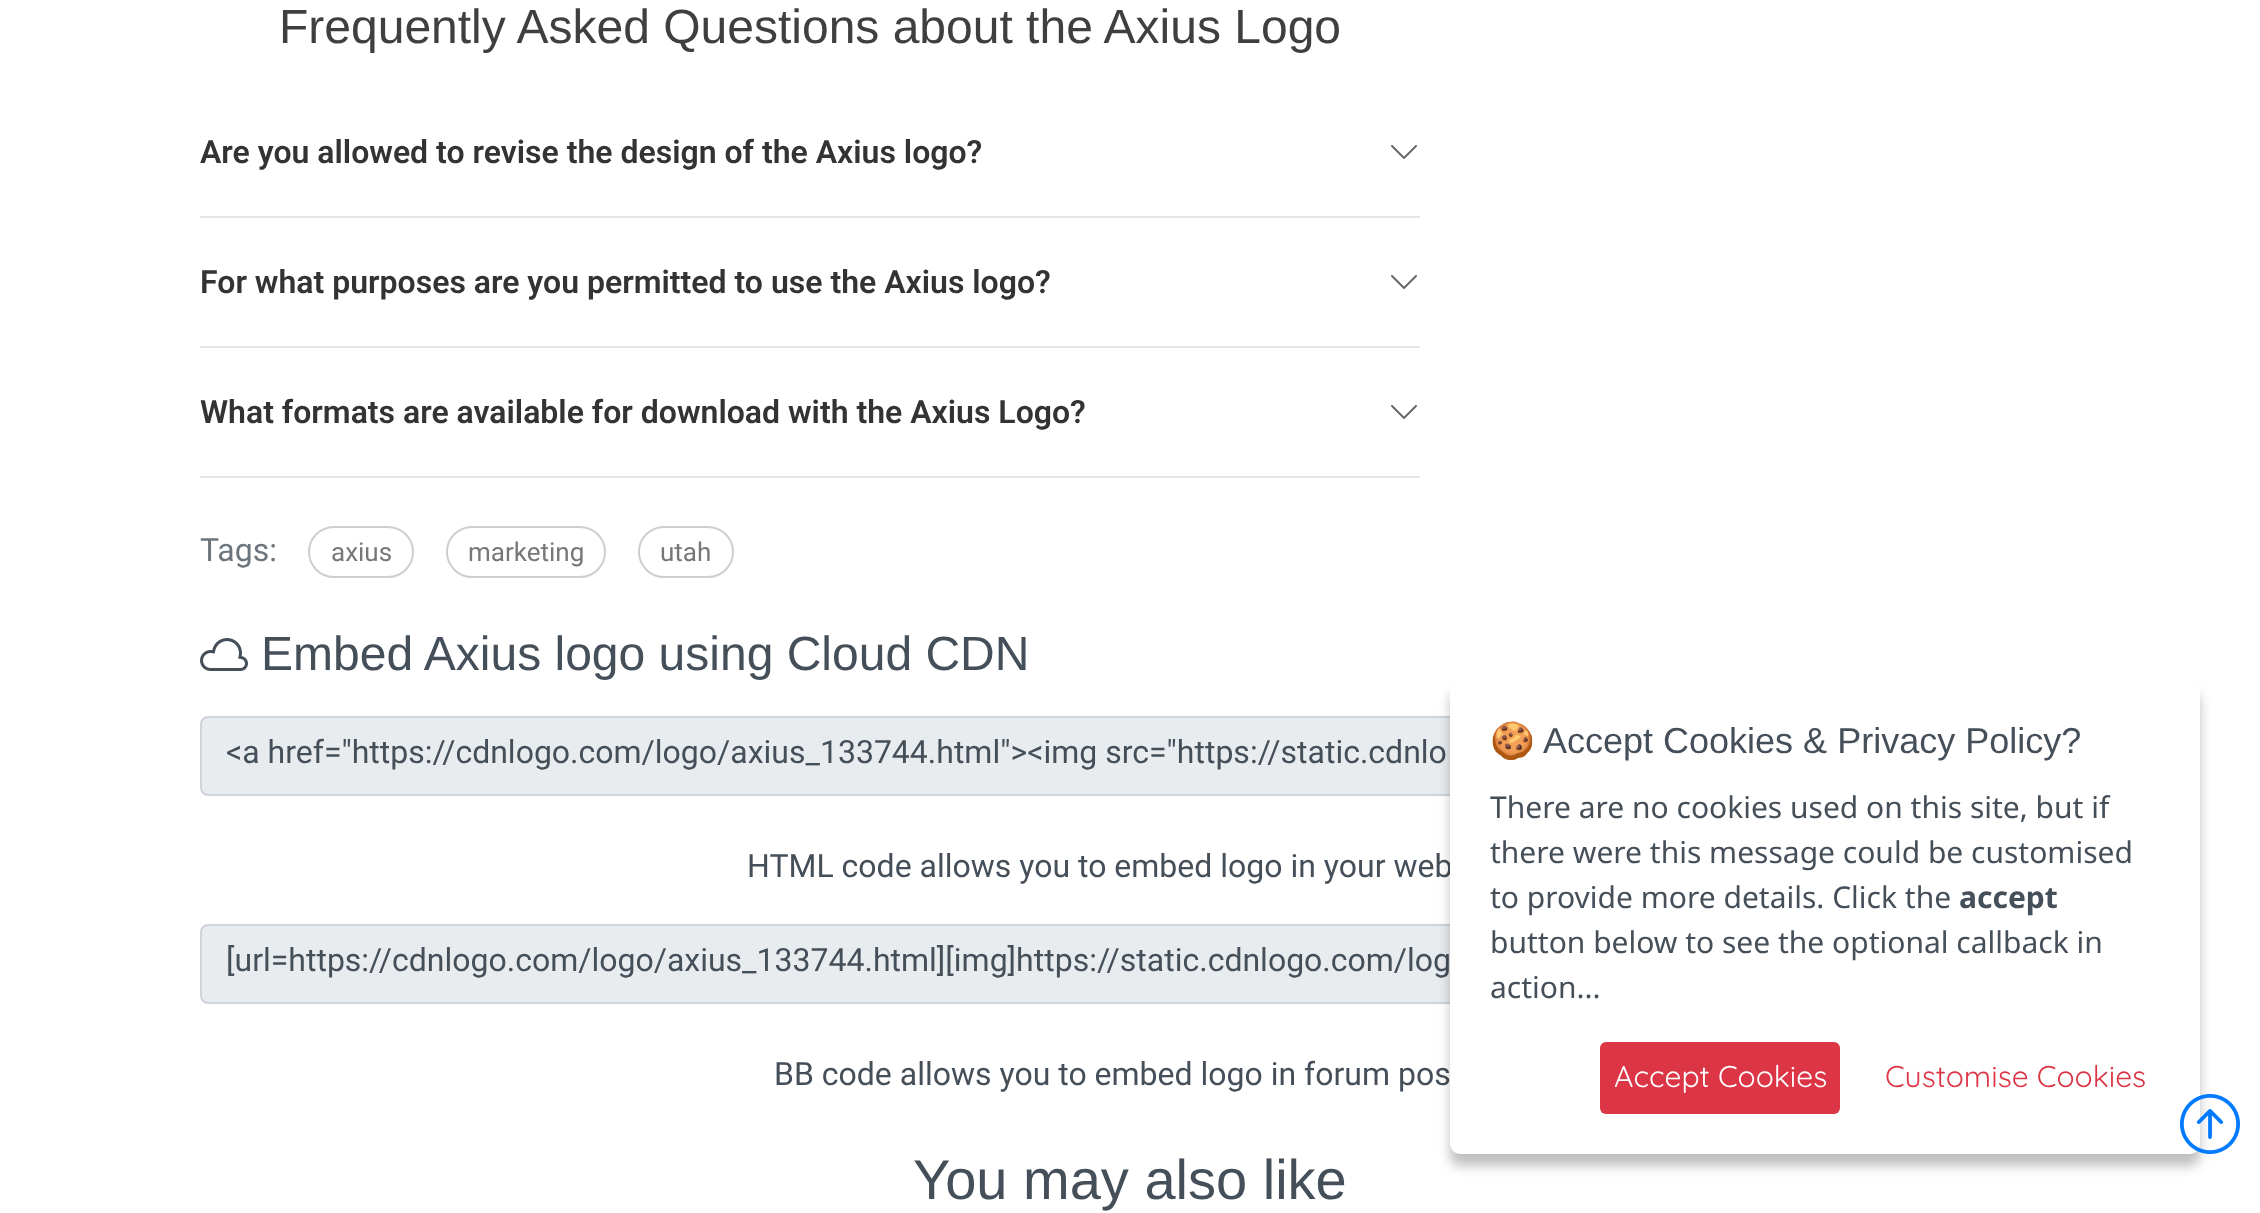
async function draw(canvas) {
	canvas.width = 2260;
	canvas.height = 1213;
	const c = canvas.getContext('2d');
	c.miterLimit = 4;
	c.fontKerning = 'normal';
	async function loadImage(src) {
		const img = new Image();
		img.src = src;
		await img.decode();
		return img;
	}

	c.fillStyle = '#fff';
	c.fillRect(0, 0, 2260, 1213);
	c.font = '48px Liberation Sans';
	c.fillStyle = '#3f3f3f';
	c.fillText('Frequently Asked Questions about the Axius Logo', 279, 43);
	c.fillStyle = '#e6e6e6';
	c.fillRect(200, 216, 1220, 2);
	c.font = '600 32px Roboto';
	c.fillStyle = '#333';
	c.fillText('Are you allowed to revise the design of the Axius logo?', 200, 163);
	c.drawImage(await loadImage('img1.png'), 1391, 145, 26, 14);
	c.fillStyle = '#e6e6e6';
	c.fillRect(200, 346, 1220, 2);
	c.fillStyle = '#333';
	c.fillText('For what purposes are you permitted to use the Axius logo?', 200, 293);
	c.drawImage(await loadImage('img1.png'), 1391, 275, 26, 14);
	c.fillStyle = '#e6e6e6';
	c.fillRect(200, 476, 1220, 2);
	c.fillStyle = '#333';
	c.fillText('What formats are available for download with the Axius Logo?', 200, 423);
	c.drawImage(await loadImage('img1.png'), 1391, 405, 26, 14);
	c.font = '32px Roboto';
	c.fillStyle = '#6c757d';
	c.fillText('Tags:', 200, 561);
	c.beginPath();
	c.roundRect(309, 527, 104, 50, 25);
	c.strokeStyle = '#cecece';
	c.lineWidth = 2;
	c.stroke();
	c.font = '26px Roboto';
	c.fillStyle = '#777';
	c.fillText('axius', 331, 561);
	c.beginPath();
	c.roundRect(447, 527, 158, 50, 25);
	c.stroke();
	c.fillText('marketing', 468, 561);
	c.beginPath();
	c.roundRect(639, 527, 94, 50, 25);
	c.stroke();
	c.fillText('utah', 660, 561);
	c.drawImage(await loadImage('img2.png'), 200, 638, 48, 33);
	c.font = '48px Liberation Sans';
	c.fillStyle = '#454f59';
	c.fillText('Embed Axius logo using Cloud CDN', 261, 670);
	c.fillStyle = '#e9ecef';
	c.beginPath();
	c.roundRect(201, 717, 1858, 78, 7);
	c.fill();
	c.strokeStyle = '#ced4da';
	c.stroke();
	c.font = '32px Roboto';
	c.fillStyle = '#454f59';
	c.fillText('<a href="https://cdnlogo.com/logo/axius_133744.html"><img src="https://static.cdnlo', 226, 763);
	c.fillText('HTML code allows you to embed logo in your web', 747, 877);
	c.fillStyle = '#e9ecef';
	c.beginPath();
	c.roundRect(201, 925, 1858, 78, 7);
	c.fill();
	c.stroke();
	c.fillStyle = '#454f59';
	c.fillText('[url=https://cdnlogo.com/logo/axius_133744.html][img]https://static.cdnlogo.com/log', 226, 971);
	c.fillText('BB code allows you to embed logo in forum pos', 774, 1085);
	c.fillStyle = '#00000040';
	c.filter = 'blur(6px)';
	c.beginPath();
	c.roundRect(1450, 692, 750, 474, 10);
	c.fill();
	c.filter = 'none';
	c.fillStyle = '#fff';
	c.beginPath();
	c.roundRect(1450, 680, 750, 474, 10);
	c.fill();
	c.font = '36px Noto Color Emoji';
	c.fillStyle = '#454f59';
	c.fillText('🍪', 1490, 753);
	c.font = '36px Liberation Sans';
	c.fillText('Accept Cookies & Privacy Policy?', 1543, 753);
	c.font = '30px Noto Sans';
	for (const [text, x, y] of [
		['There are no cookies used on this site, but if', 1490, 818],
		['there were this message could be customised', 1490, 863],
		['to provide more details. Click the', 1490, 908],
	]) {
		c.fillText(text, x, y);
	}
	c.font = 'bold 30px Noto Sans';
	c.fillText('accept', 1959, 908);
	c.font = '30px Noto Sans';
	c.fillText('button below to see the optional callback in', 1490, 953);
	c.fillText('action...', 1490, 998);
	c.fillStyle = '#dc3545';
	c.beginPath();
	c.roundRect(1600, 1042, 240, 72, 6);
	c.fill();
	c.font = '30px Quicksand';
	c.fillStyle = '#fff';
	c.fillText('Accept Cookies', 1614, 1087);
	c.fillStyle = '#dc3545';
	c.fillText('Customise Cookies', 1885, 1087);
	c.drawImage(await loadImage('img3.png'), 2180, 1094, 60, 60);
	c.font = '56px Liberation Sans';
	c.fillStyle = '#454f59';
	c.fillText('You may also like', 913, 1199);
}

draw(document.querySelector('canvas'));
